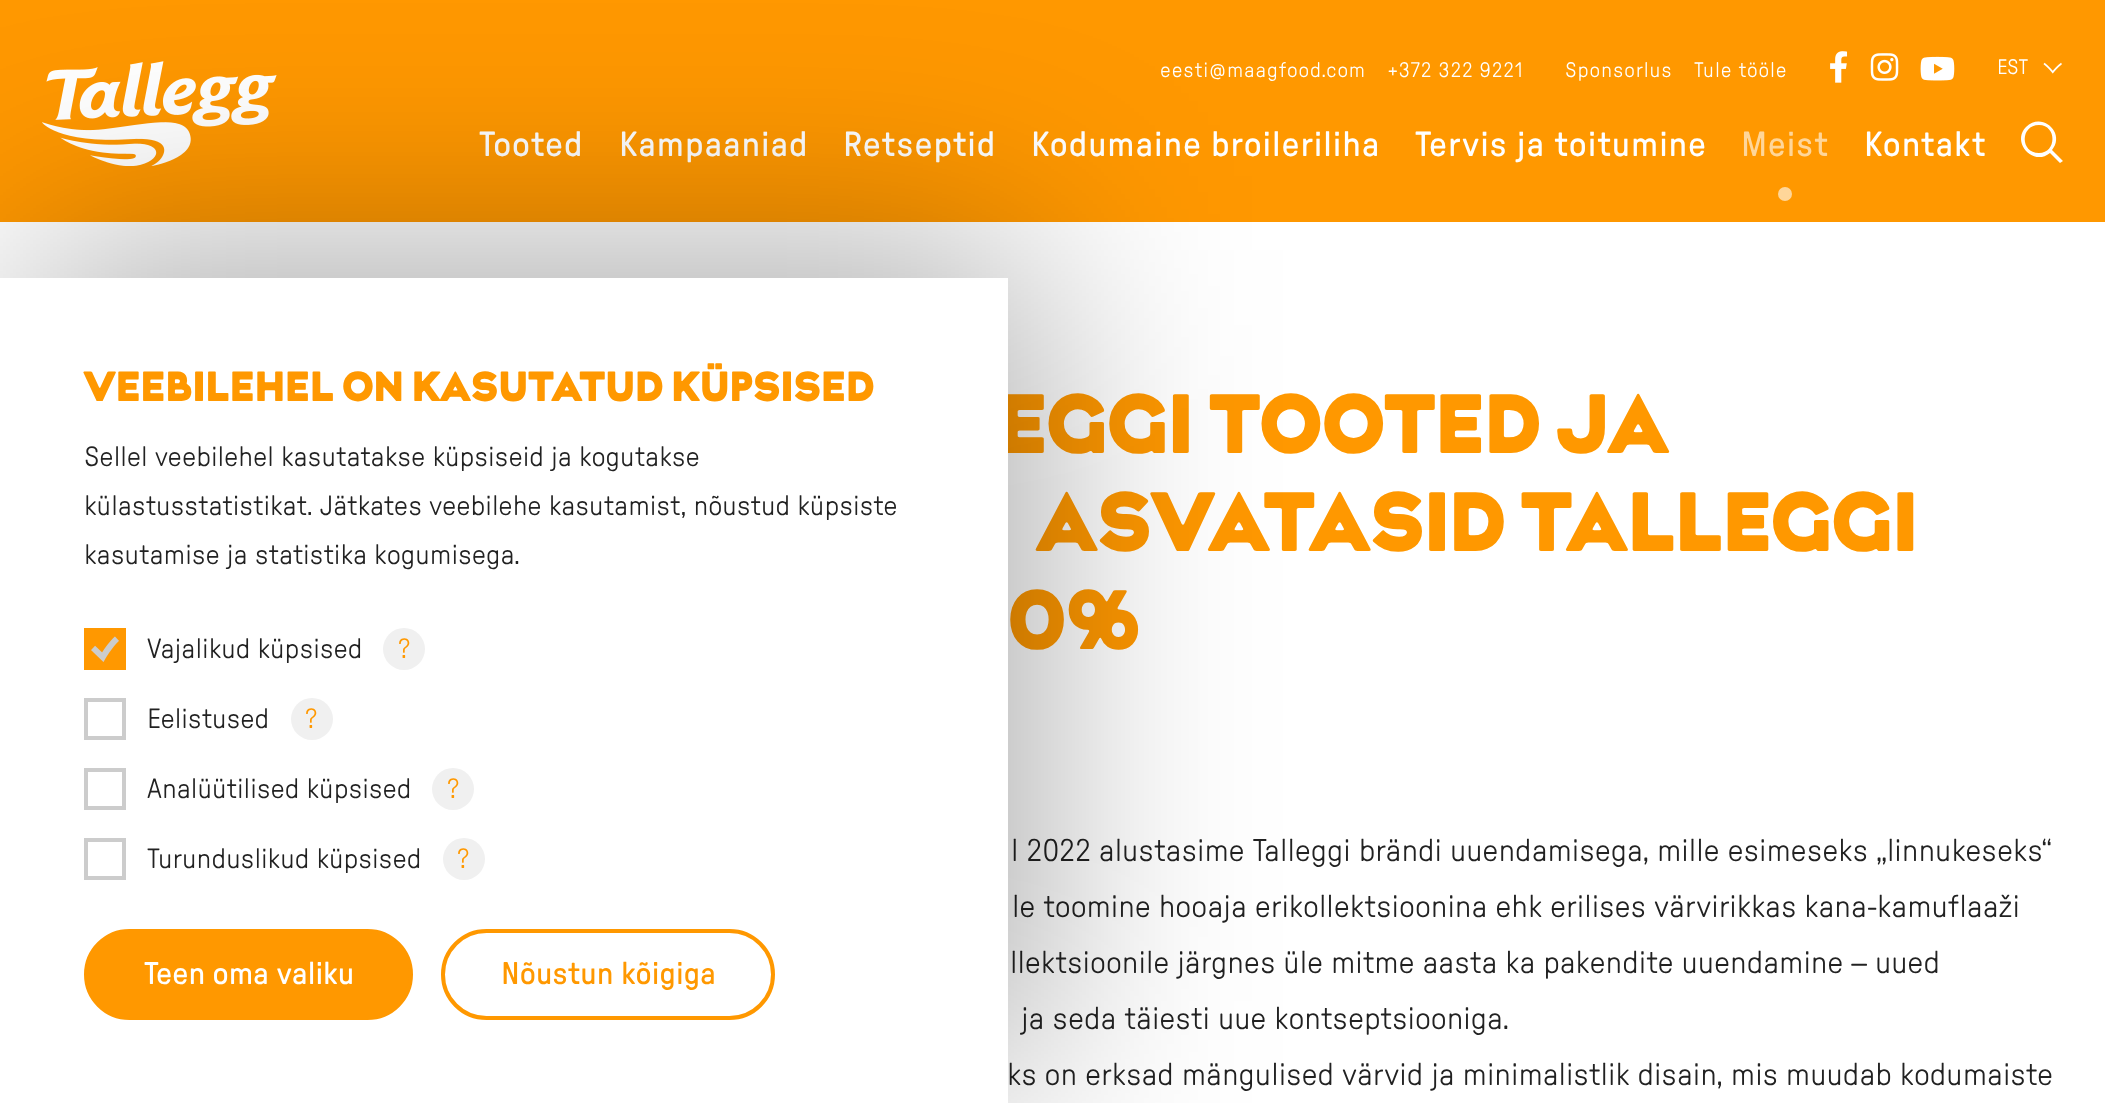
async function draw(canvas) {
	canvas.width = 2105;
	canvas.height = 1103;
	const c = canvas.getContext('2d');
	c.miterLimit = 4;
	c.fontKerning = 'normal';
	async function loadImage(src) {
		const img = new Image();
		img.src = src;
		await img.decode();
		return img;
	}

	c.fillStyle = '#fff';
	c.fillRect(0, 0, 2105, 1103);
	c.fillStyle = '#ff9800';
	c.fillRect(0, 0, 2105, 222);
	c.drawImage(await loadImage('img1.png'), 42, 61, 235, 105);
	c.letterSpacing = '0.9px';
	c.font = '300 21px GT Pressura';
	c.fillStyle = '#fff';
	for (const [text, x, y] of [
		['eesti@maagfood.com', 1160, 77],
		['+372 322 9221', 1387, 77],
		['Sponsorlus', 1565, 77],
		['Tule tööle', 1694, 77],
	]) {
		c.fillText(text, x, y);
	}
	c.drawImage(await loadImage('img2.png'), 1830, 51, 18, 32);
	c.drawImage(await loadImage('img3.png'), 1870, 53, 29, 28);
	c.drawImage(await loadImage('img4.png'), 1920, 56, 35, 25);
	c.letterSpacing = '0px';
	c.fillText('EST', 1997, 74);
	c.drawImage(await loadImage('img5.png'), 2043, 62, 19, 12);
	c.letterSpacing = '0.9px';
	c.font = '35px GT Pressura';
	for (const [text, x, y] of [
		['Tooted', 479, 156],
		['Kampaaniad', 619, 156],
		['Retseptid', 843, 156],
		['Kodumaine broileriliha', 1031, 156],
		['Tervis ja toitumine', 1415, 156],
	]) {
		c.fillText(text, x, y);
	}
	c.fillStyle = '#ffd699';
	c.fillText('Meist', 1741, 156);
	c.beginPath();
	c.arc(1785, 194, 7, 0, 2 * Math.PI);
	c.fill();
	c.fillStyle = '#fff';
	c.fillText('Kontakt', 1864, 156);
	c.beginPath();
	c.moveTo(2060, 163);
	c.lineTo(2050, 153);
	c.bezierCurveTo(2033, 167, 2011, 142, 2026, 127);
	c.bezierCurveTo(2042, 111, 2066, 133, 2052, 150);
	c.lineTo(2063, 161);
	c.closePath();
	c.moveTo(2039, 125);
	c.bezierCurveTo(2020, 125, 2020, 153, 2039, 153);
	c.bezierCurveTo(2057, 153, 2057, 125, 2039, 125);
	c.closePath();
	c.fill();
	c.font = '900 84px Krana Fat';
	c.fillStyle = '#ff9800';
	for (const [text, x, y] of [
		['EGGI TOOTED JA', 999, 453],
		['ASVATASID TALLEGGI', 1036, 551],
		['0%', 1009, 649],
	]) {
		c.fillText(text, x, y);
	}
	c.letterSpacing = '0px';
	c.font = '300 31.5px GT Pressura';
	c.fillStyle = '#222';
	for (const [text, x, y] of [
		['l 2022 alustasime Talleggi brändi uuendamisega, mille esimeseks „linnukeseks“', 1011, 861],
		['le toomine hooaja erikollektsioonina ehk erilises värvirikkas kana-kamuflaaži', 1012, 917],
		['llektsioonile järgnes üle mitme aasta ka pakendite uuendamine – uued', 1010, 973],
		['ja seda täiesti uue kontseptsiooniga.', 1021, 1029],
		['ks on erksad mängulised värvid ja minimalistlik disain, mis muudab kodumaiste', 1007, 1085],
	]) {
		c.fillText(text, x, y);
	}
	c.fillStyle = '#00000054';
	c.filter = 'blur(112px)';
	c.beginPath();
	c.rect(28, 250, 1008, 826);
	c.fill();
	c.filter = 'none';
	c.fillStyle = '#fff';
	c.fillRect(0, 278, 1008, 825);
	c.letterSpacing = '0.9px';
	c.font = '900 42px Krana Fat';
	c.fillStyle = '#ff9800';
	c.fillText('VEEBILEHEL ON KASUTATUD KÜPSISED', 84, 401);
	c.letterSpacing = '0px';
	c.font = '300 28px GT Pressura';
	c.fillStyle = '#222';
	for (const [text, x, y] of [
		['Sellel veebilehel kasutatakse küpsiseid ja kogutakse', 84, 466],
		['külastusstatistikat. Jätkates veebilehe kasutamist, nõustud küpsiste', 84, 515],
		['kasutamise ja statistika kogumisega.', 84, 564],
	]) {
		c.fillText(text, x, y);
	}
	c.fillStyle = '#ff9800';
	c.fillRect(84, 628, 42, 42);
	c.drawImage(await loadImage('img6.png'), 91, 636, 28, 26);
	c.fillStyle = '#222';
	c.fillText('Vajalikud küpsised', 147, 658);
	c.fillStyle = '#f0f0f0';
	c.beginPath();
	c.arc(404, 649, 21, 0, 2 * Math.PI);
	c.fill();
	c.fillStyle = '#ff9800';
	c.fillText('?', 398, 658);
	c.strokeStyle = '#ccc';
	c.lineWidth = 4;
	c.strokeRect(86, 700, 38, 38);
	c.fillStyle = '#222';
	c.fillText('Eelistused', 147, 728);
	c.fillStyle = '#f0f0f0';
	c.beginPath();
	c.arc(312, 719, 21, 0, 2 * Math.PI);
	c.fill();
	c.fillStyle = '#ff9800';
	c.fillText('?', 305, 728);
	c.strokeRect(86, 770, 38, 38);
	c.fillStyle = '#222';
	c.fillText('Analüütilised küpsised', 147, 798);
	c.fillStyle = '#f0f0f0';
	c.beginPath();
	c.arc(453, 789, 21, 0, 2 * Math.PI);
	c.fill();
	c.fillStyle = '#ff9800';
	c.fillText('?', 447, 798);
	c.strokeRect(86, 840, 38, 38);
	c.fillStyle = '#222';
	c.fillText('Turunduslikud küpsised', 147, 868);
	c.fillStyle = '#f0f0f0';
	c.beginPath();
	c.arc(464, 859, 21, 0, 2 * Math.PI);
	c.fill();
	c.fillStyle = '#ff9800';
	c.fillText('?', 457, 868);
	c.beginPath();
	c.roundRect(86, 931, 325, 87, 43.5);
	c.fill();
	c.strokeStyle = '#ff9800';
	c.stroke();
	c.font = '31.5px GT Pressura';
	c.fillStyle = '#fff';
	c.fillText('Teen oma valiku', 144, 984);
	c.beginPath();
	c.roundRect(443, 931, 330, 87, 43.5);
	c.stroke();
	c.fillStyle = '#ff9800';
	c.fillText('Nõustun kõigiga', 501, 984);
}

draw(document.querySelector('canvas'));
